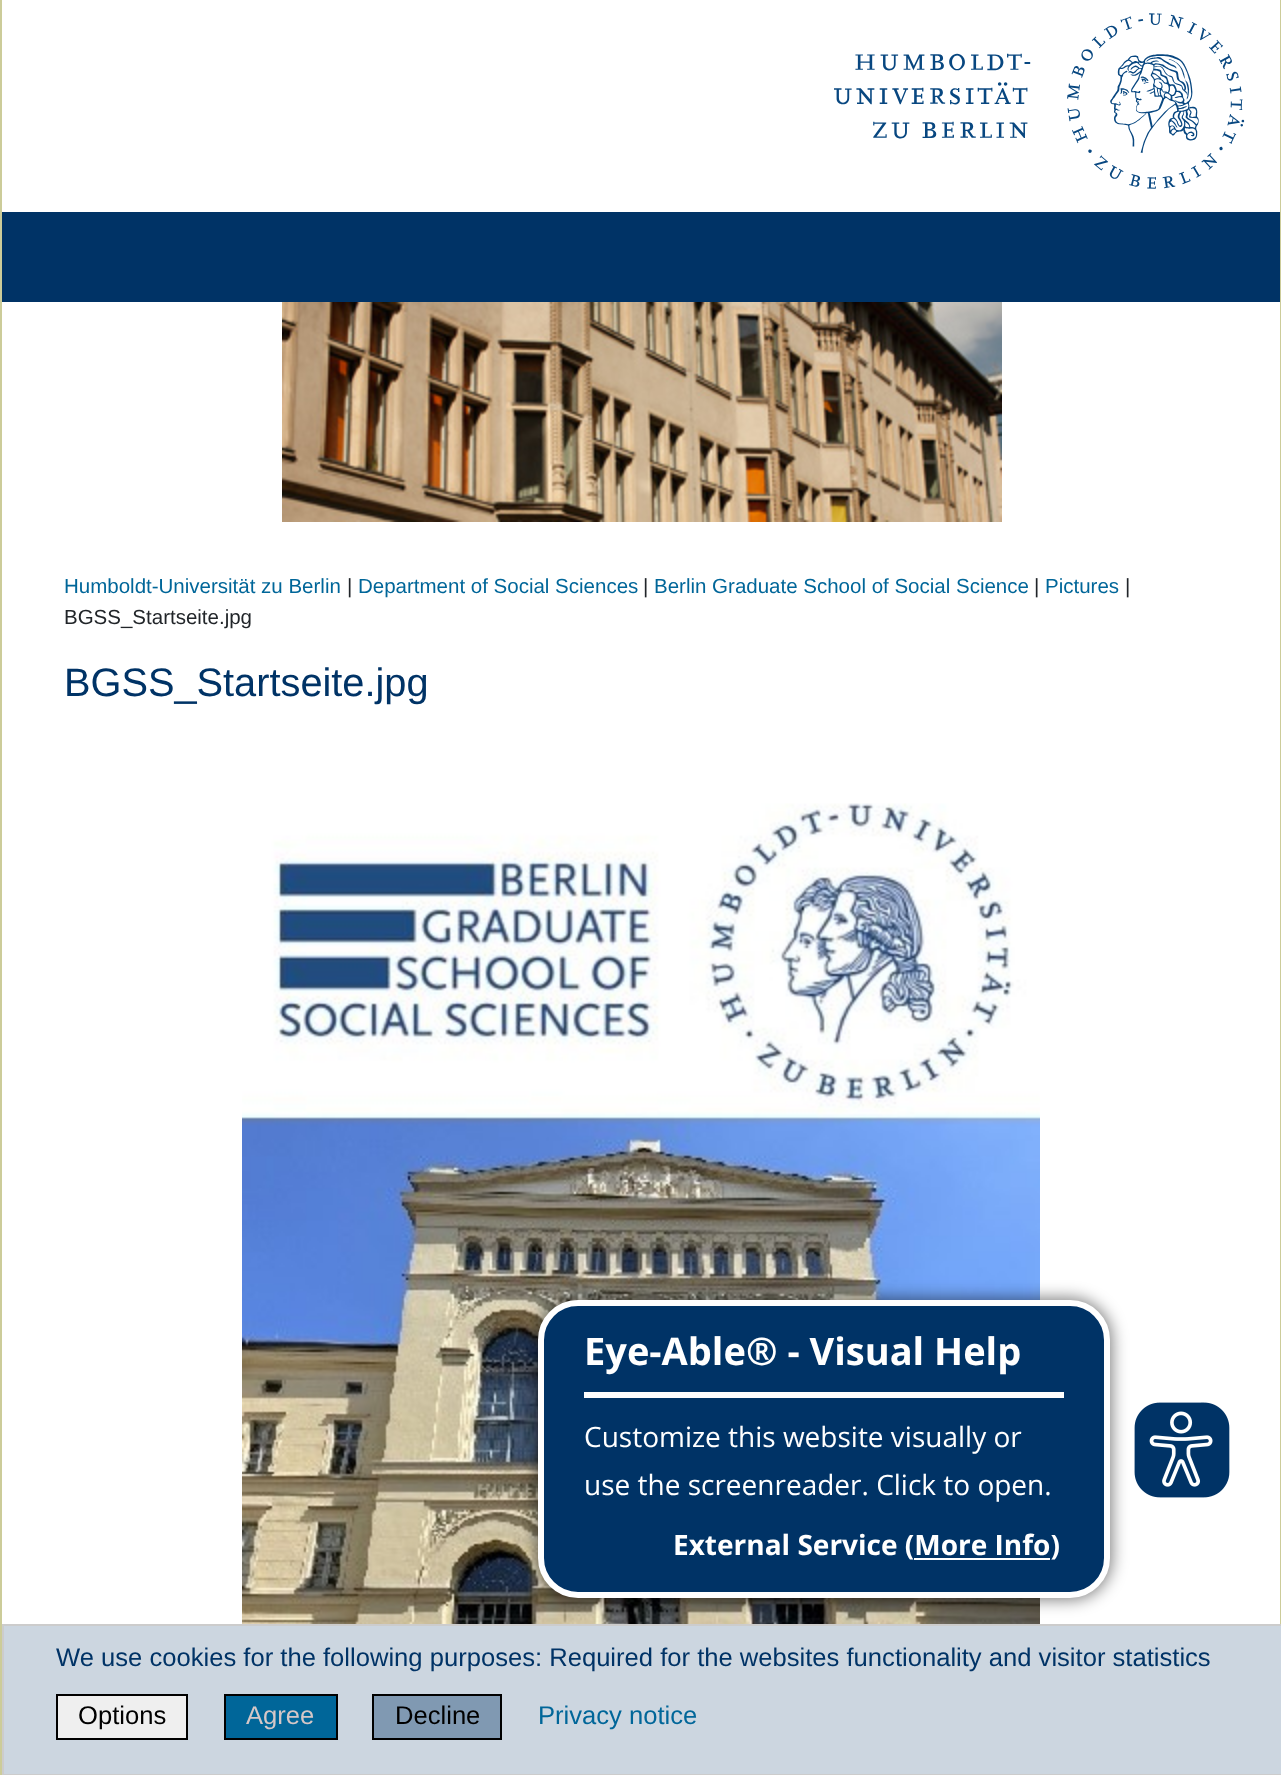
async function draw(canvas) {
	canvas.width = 1281;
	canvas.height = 1775;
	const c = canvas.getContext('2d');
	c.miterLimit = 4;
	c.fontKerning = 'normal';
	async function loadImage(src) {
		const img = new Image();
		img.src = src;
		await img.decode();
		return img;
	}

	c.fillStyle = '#fff';
	c.fillRect(0, 0, 1281, 1775);
	c.drawImage(await loadImage('img1.png'), 834, 13, 411, 176);
	c.fillStyle = '#036';
	c.fillRect(2, 212, 1278, 90);
	c.drawImage(await loadImage('img2.png'), 282, 302, 720, 220);
	c.fillStyle = '#cc9';
	c.fillRect(1280, 0, 1, 1624);
	c.fillRect(0, 0, 2, 1775);
	c.font = '20.5px Liberation Sans';
	c.fillStyle = '#069';
	c.fillText('Humboldt-Universität zu Berlin', 64, 593);
	c.fillStyle = '#212529';
	c.fillText('|', 347, 593);
	c.fillStyle = '#069';
	c.fillText('Department of Social Sciences', 358, 593);
	c.fillStyle = '#212529';
	c.fillText('|', 643, 593);
	c.fillStyle = '#069';
	c.fillText('Berlin Graduate School of Social Science', 654, 593);
	c.fillStyle = '#212529';
	c.fillText('|', 1034, 593);
	c.fillStyle = '#069';
	c.fillText('Pictures', 1045, 593);
	c.fillStyle = '#212529';
	c.fillText('|', 1125, 593);
	c.fillText('BGSS_Startseite.jpg', 64, 624);
	c.font = '39.75px Liberation Sans';
	c.fillStyle = '#036';
	c.fillText('BGSS_Startseite.jpg', 64, 696);
	c.drawImage(await loadImage('img3.png'), 242, 803, 798, 821);
	c.fillStyle = '#ccd6e0';
	c.beginPath();
	c.rect(3, 1625, 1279, 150);
	c.fill();
	c.strokeStyle = '#ccc';
	c.lineWidth = 2;
	c.stroke();
	c.fillStyle = '#00000080';
	c.filter = 'blur(8px)';
	c.beginPath();
	c.roundRect(536, 1298, 576, 302, 42);
	c.fill();
	c.filter = 'none';
	c.fillStyle = '#036';
	c.beginPath();
	c.roundRect(541, 1303, 566, 292, 37);
	c.fill();
	c.strokeStyle = '#fff';
	c.lineWidth = 6;
	c.stroke();
	c.fillStyle = '#fff';
	c.fillRect(584, 1392, 480, 6);
	c.font = 'bold 38px Open Sans';
	c.fillText('Eye-Able® - Visual Help', 584, 1365);
	c.font = '28px Open Sans';
	c.fillText('Customize this website visually or', 584, 1447);
	c.fillText('use the screenreader. Click to open.', 584, 1495);
	c.font = 'bold 28px Open Sans';
	c.fillText('External Service (More Info)', 673, 1555);
	c.fillRect(914, 1558, 136, 2);
	c.drawImage(await loadImage('img4.png'), 1134, 1402, 96, 96);
	c.font = '25.6px Liberation Sans';
	c.fillStyle = '#036';
	c.fillText('We use cookies for the following purposes: Required for the websites functionality and visitor statistics', 56, 1666);
	c.fillStyle = '#efefef';
	c.beginPath();
	c.rect(57, 1695, 130, 44);
	c.fill();
	c.strokeStyle = '#000';
	c.lineWidth = 2;
	c.stroke();
	c.fillStyle = '#000';
	c.fillText('Options', 78, 1724);
	c.fillStyle = '#069';
	c.beginPath();
	c.rect(225, 1695, 112, 44);
	c.fill();
	c.stroke();
	c.fillStyle = '#d5c7c7';
	c.fillText('Agree', 246, 1724);
	c.fillStyle = '#8099b2';
	c.beginPath();
	c.rect(373, 1695, 128, 44);
	c.fill();
	c.stroke();
	c.fillStyle = '#000';
	c.fillText('Decline', 395, 1724);
	c.fillStyle = '#069';
	c.fillText('Privacy notice', 538, 1724);
}

draw(document.querySelector('canvas'));
